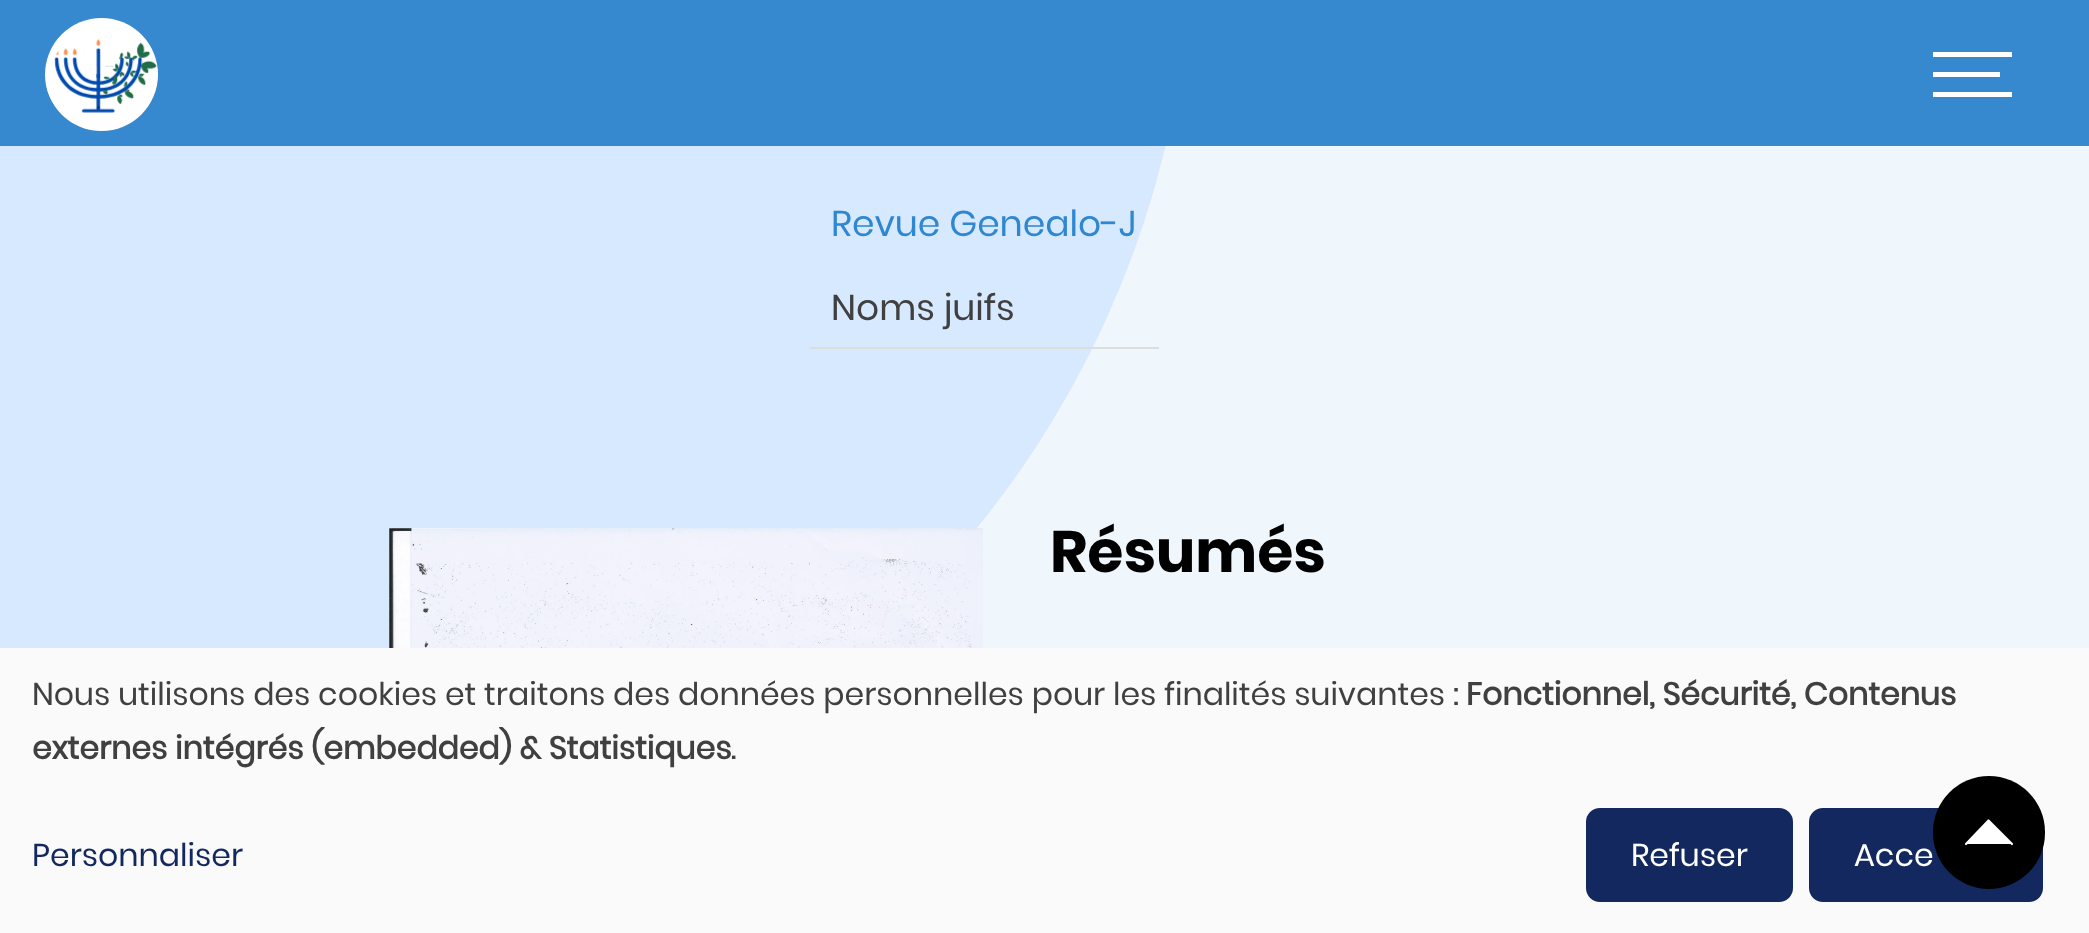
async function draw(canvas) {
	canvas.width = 2089;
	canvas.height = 933;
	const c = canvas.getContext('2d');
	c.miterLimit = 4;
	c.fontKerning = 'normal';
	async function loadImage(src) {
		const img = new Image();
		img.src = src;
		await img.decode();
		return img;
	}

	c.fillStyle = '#f0f7fc';
	c.fillRect(0, 0, 2089, 933);
	c.fillStyle = '#d7e9fe';
	c.beginPath();
	c.moveTo(0, 860);
	c.lineTo(0, -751);
	c.lineTo(919, -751);
	c.bezierCurveTo(1095, -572, 1193, -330, 1192, -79);
	c.bezierCurveTo(1192, 454, 760, 886, 227, 886);
	c.bezierCurveTo(151, 887, 74, 878, 0, 860);
	c.closePath();
	c.fill();
	c.fillStyle = '#3689ce';
	c.fillRect(0, 0, 2089, 146);
	c.fillStyle = '#fff';
	c.beginPath();
	c.arc(101.5, 74.5, 56.5, 0, 2 * Math.PI);
	c.fill();
	c.drawImage(await loadImage('img1.png'), 47, 38, 111, 75);
	for (const [x, y, w, h, color] of [
		[1933, 72, 67, 5, '#fff'],
		[1933, 52, 79, 5, '#fff'],
		[1933, 92, 79, 5, '#fff'],
		[810, 347, 349, 2, '#ddd'],
	]) {
		c.fillStyle = color;
		c.fillRect(x, y, w, h);
	}
	c.font = '36px Poppins';
	c.fillStyle = '#3087d1';
	c.fillText('Revue Genealo-J', 831, 236);
	c.fillStyle = '#404040';
	c.fillText('Noms juifs', 831, 320);
	c.drawImage(await loadImage('img2.png'), 389, 528, 594, 120);
	c.font = 'bold 58.5px Poppins';
	c.fillStyle = '#000';
	c.fillText('Résumés', 1050, 572);
	c.fillStyle = '#fafafa';
	c.fillRect(0, 648, 2089, 285);
	c.font = '31.5px Poppins';
	c.fillStyle = '#404040';
	c.fillText('Nous utilisons des cookies et traitons des données personnelles pour les finalités suivantes :', 32, 705);
	c.font = 'bold 31.5px "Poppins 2"';
	c.fillText('Fonctionnel, Sécurité, Contenus', 1466, 705);
	c.fillText('externes intégrés (embedded) & Statistiques', 32, 759);
	c.font = '31.5px Poppins';
	c.fillText('.', 731, 759);
	c.fillStyle = '#12285f';
	c.fillText('Personnaliser', 32, 866);
	c.beginPath();
	c.roundRect(1589.5, 811.5, 200, 87, 10.5);
	c.fill();
	c.strokeStyle = '#12285f';
	c.lineWidth = 7;
	c.stroke();
	c.fillStyle = '#fff';
	c.fillText('Refuser', 1631, 866);
	c.fillStyle = '#12285f';
	c.beginPath();
	c.roundRect(1812.5, 811.5, 227, 87, 10.5);
	c.fill();
	c.stroke();
	c.fillStyle = '#fff';
	c.fillText('Acce', 1854, 866);
	c.fillStyle = '#000';
	c.beginPath();
	c.roundRect(1933, 776, 112, 113, 56);
	c.fill();
	c.fillStyle = '#fff';
	c.beginPath();
	c.moveTo(2012, 844);
	c.lineTo(1989, 821);
	c.lineTo(1966, 844);
	c.fill();
	c.beginPath();
	c.moveTo(2012, 844);
	c.lineTo(1988.5, 820.5);
	c.lineTo(1966, 844);
	c.strokeStyle = '#fff';
	c.lineWidth = 2.2;
	c.lineCap = 'round';
	c.lineJoin = 'round';
	c.stroke();
}

draw(document.querySelector('canvas'));
